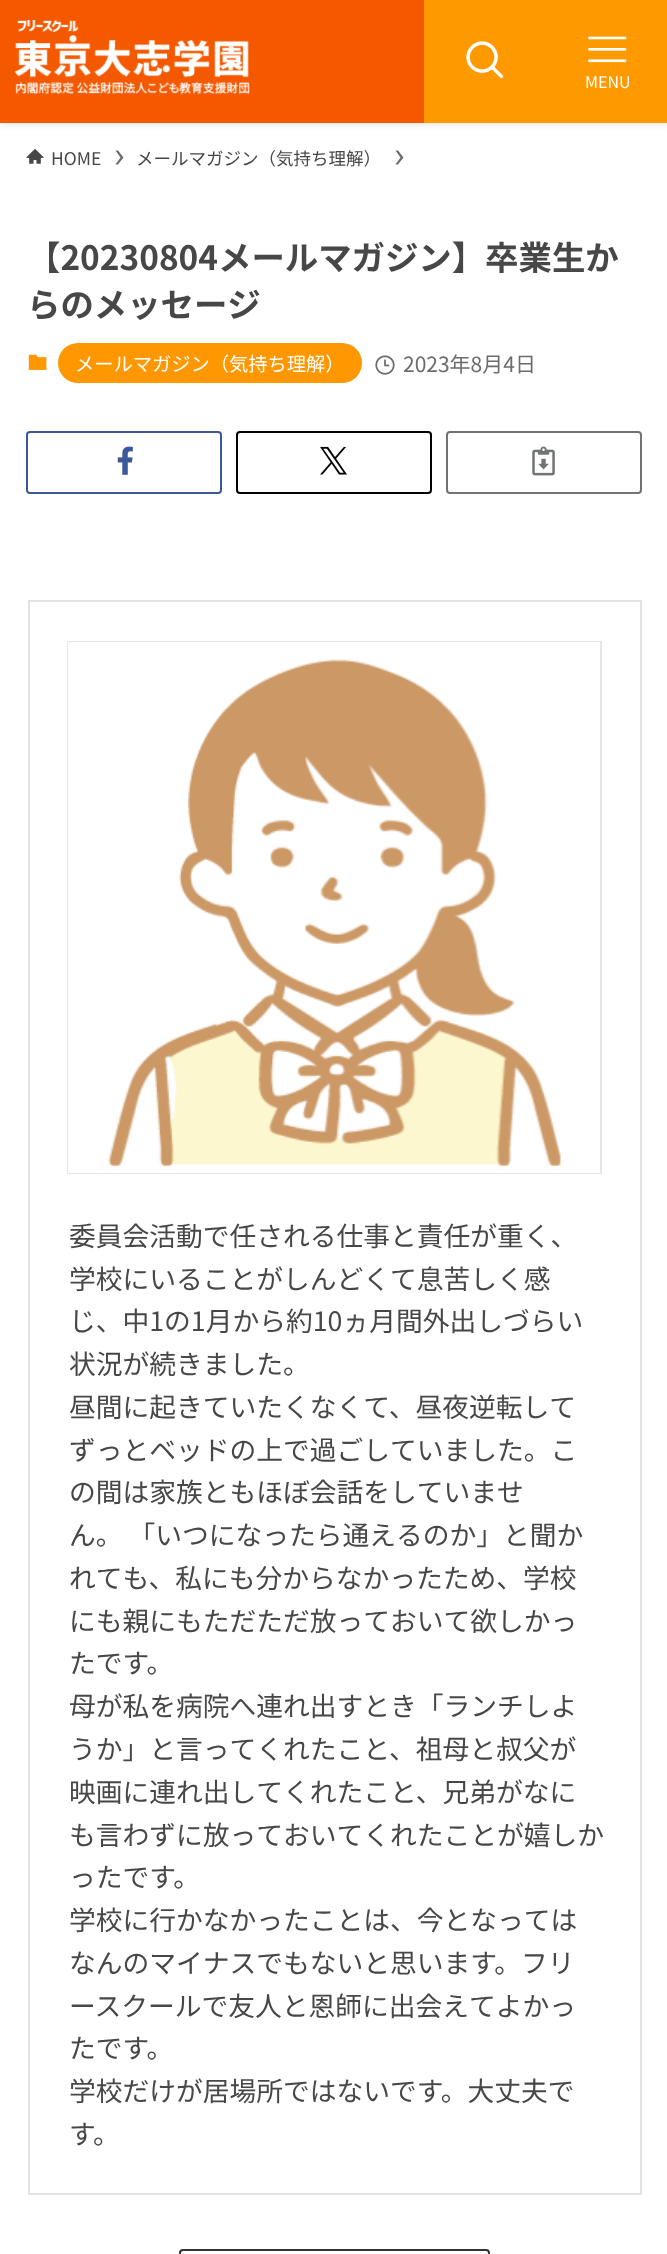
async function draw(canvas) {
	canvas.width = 667;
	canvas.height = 2254;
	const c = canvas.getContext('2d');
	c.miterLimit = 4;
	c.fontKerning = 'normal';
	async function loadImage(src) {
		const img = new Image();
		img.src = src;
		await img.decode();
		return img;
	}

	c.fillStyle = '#fff';
	c.fillRect(0, 0, 667, 2254);
	c.fillStyle = '#0000001f';
	c.filter = 'blur(3.5px)';
	c.beginPath();
	c.rect(0, 2, 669, 122);
	c.fill();
	c.filter = 'none';
	c.fillStyle = '#f45900';
	c.fillRect(0, 0, 424, 123);
	c.drawImage(await loadImage('img1.png'), 14, 20, 236, 75);
	c.fillStyle = '#f90';
	c.fillRect(424, 0, 243, 123);
	c.drawImage(await loadImage('img2.png'), 466, 41, 38, 38);
	c.drawImage(await loadImage('img3.png'), 588, 36, 39, 27);
	c.font = '16px Noto Sans JP';
	c.fillStyle = '#fff';
	c.fillText('MENU', 585, 88);
	c.drawImage(await loadImage('img4.png'), 26, 148, 18, 16);
	c.font = '17.5px Noto Sans JP';
	c.fillStyle = '#474747';
	c.fillText('HOME', 51, 165);
	c.fillStyle = '#6c6c6c';
	c.beginPath();
	c.moveTo(118, 150.5);
	c.lineTo(115.5, 150.5);
	c.lineTo(120.5, 157.5);
	c.lineTo(115.5, 164.5);
	c.lineTo(118, 164.5);
	c.lineTo(123.5, 157.5);
	c.closePath();
	c.fill();
	c.fillStyle = '#474747';
	c.fillText('メールマガジン（気持ち理解）', 136, 165);
	c.fillStyle = '#6c6c6c';
	c.beginPath();
	c.moveTo(398, 150.5);
	c.lineTo(395.5, 150.5);
	c.lineTo(400.5, 157.5);
	c.lineTo(395.5, 164.5);
	c.lineTo(398, 164.5);
	c.lineTo(403.5, 157.5);
	c.closePath();
	c.fill();
	c.font = 'bold 33.4px Noto Sans JP';
	c.fillStyle = '#474747';
	c.fillText('【20230804メールマガジン】卒業生か', 27, 270);
	c.fillText('らのメッセージ', 27, 317);
	c.drawImage(await loadImage('img5.png'), 28, 354, 19, 16);
	c.fillStyle = '#ff9700';
	c.beginPath();
	c.roundRect(58, 343, 304, 40, 20);
	c.fill();
	c.font = '19.25px Noto Sans JP';
	c.fillStyle = '#fff';
	c.fillText('メールマガジン（気持ち理解）', 75, 371);
	c.drawImage(await loadImage('img6.png'), 375, 355, 20, 20);
	c.font = '21px Noto Sans JP';
	c.fillStyle = '#6c6c6c';
	c.fillText('2023年8月4日', 403, 372);
	c.beginPath();
	c.roundRect(27, 432, 194, 61, 3);
	c.strokeStyle = '#3b5998';
	c.lineWidth = 2;
	c.stroke();
	c.drawImage(await loadImage('img7.png'), 117, 446, 16, 29);
	c.beginPath();
	c.roundRect(237, 432, 194, 61, 3);
	c.strokeStyle = '#000';
	c.stroke();
	c.drawImage(await loadImage('img8.png'), 320, 446, 27, 29);
	c.beginPath();
	c.roundRect(447, 432, 194, 61, 3);
	c.strokeStyle = '#717475';
	c.stroke();
	c.drawImage(await loadImage('img9.png'), 532, 446, 23, 30);
	c.strokeStyle = '#e3e3e3';
	c.strokeRect(29, 601, 612, 1593);
	c.strokeStyle = '#e6e6e6';
	c.strokeRect(68, 642, 533, 531);
	c.strokeStyle = '#fff';
	c.lineWidth = 7;
	c.strokeRect(71.5, 645.5, 525, 524);
	c.drawImage(await loadImage('img10.png'), 107, 659, 454, 508);
	c.font = '26.75px Noto Sans JP';
	c.fillStyle = '#474747';
	for (const [text, x, y] of [
		['委員会活動で任される仕事と責任が重く、', 69, 1246],
		['学校にいることがしんどくて息苦しく感', 69, 1289],
		['じ、中1の1月から約10ヵ月間外出しづらい', 69, 1331],
		['状況が続きました。', 69, 1374],
		['昼間に起きていたくなくて、昼夜逆転して', 69, 1417],
		['ずっとベッドの上で過ごしていました。こ', 69, 1460],
		['の間は家族ともほぼ会話をしていませ', 69, 1502],
		['ん。 「いつになったら通えるのか」と聞か', 69, 1545],
		['れても、私にも分からなかったため、学校', 69, 1588],
		['にも親にもただただ放っておいて欲しかっ', 69, 1631],
		['たです。', 69, 1673],
		['母が私を病院へ連れ出すとき「ランチしよ', 69, 1716],
		['うか」と言ってくれたこと、祖母と叔父が', 69, 1759],
		['映画に連れ出してくれたこと、兄弟がなに', 69, 1802],
		['も言わずに放っておいてくれたことが嬉しか', 69, 1845],
		['ったです。', 69, 1887],
		['学校に行かなかったことは、今となっては', 69, 1930],
		['なんのマイナスでもないと思います。フリ', 69, 1973],
		['ースクールで友人と恩師に出会えてよかっ', 69, 2016],
		['たです。', 69, 2058],
		['学校だけが居場所ではないです。大丈夫で', 69, 2101],
		['す。', 69, 2144],
	]) {
		c.fillText(text, x, y);
	}
	c.beginPath();
	c.roundRect(180, 2250, 309, 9, 3);
	c.strokeStyle = '#333';
	c.lineWidth = 2;
	c.stroke();
}

draw(document.querySelector('canvas'));
